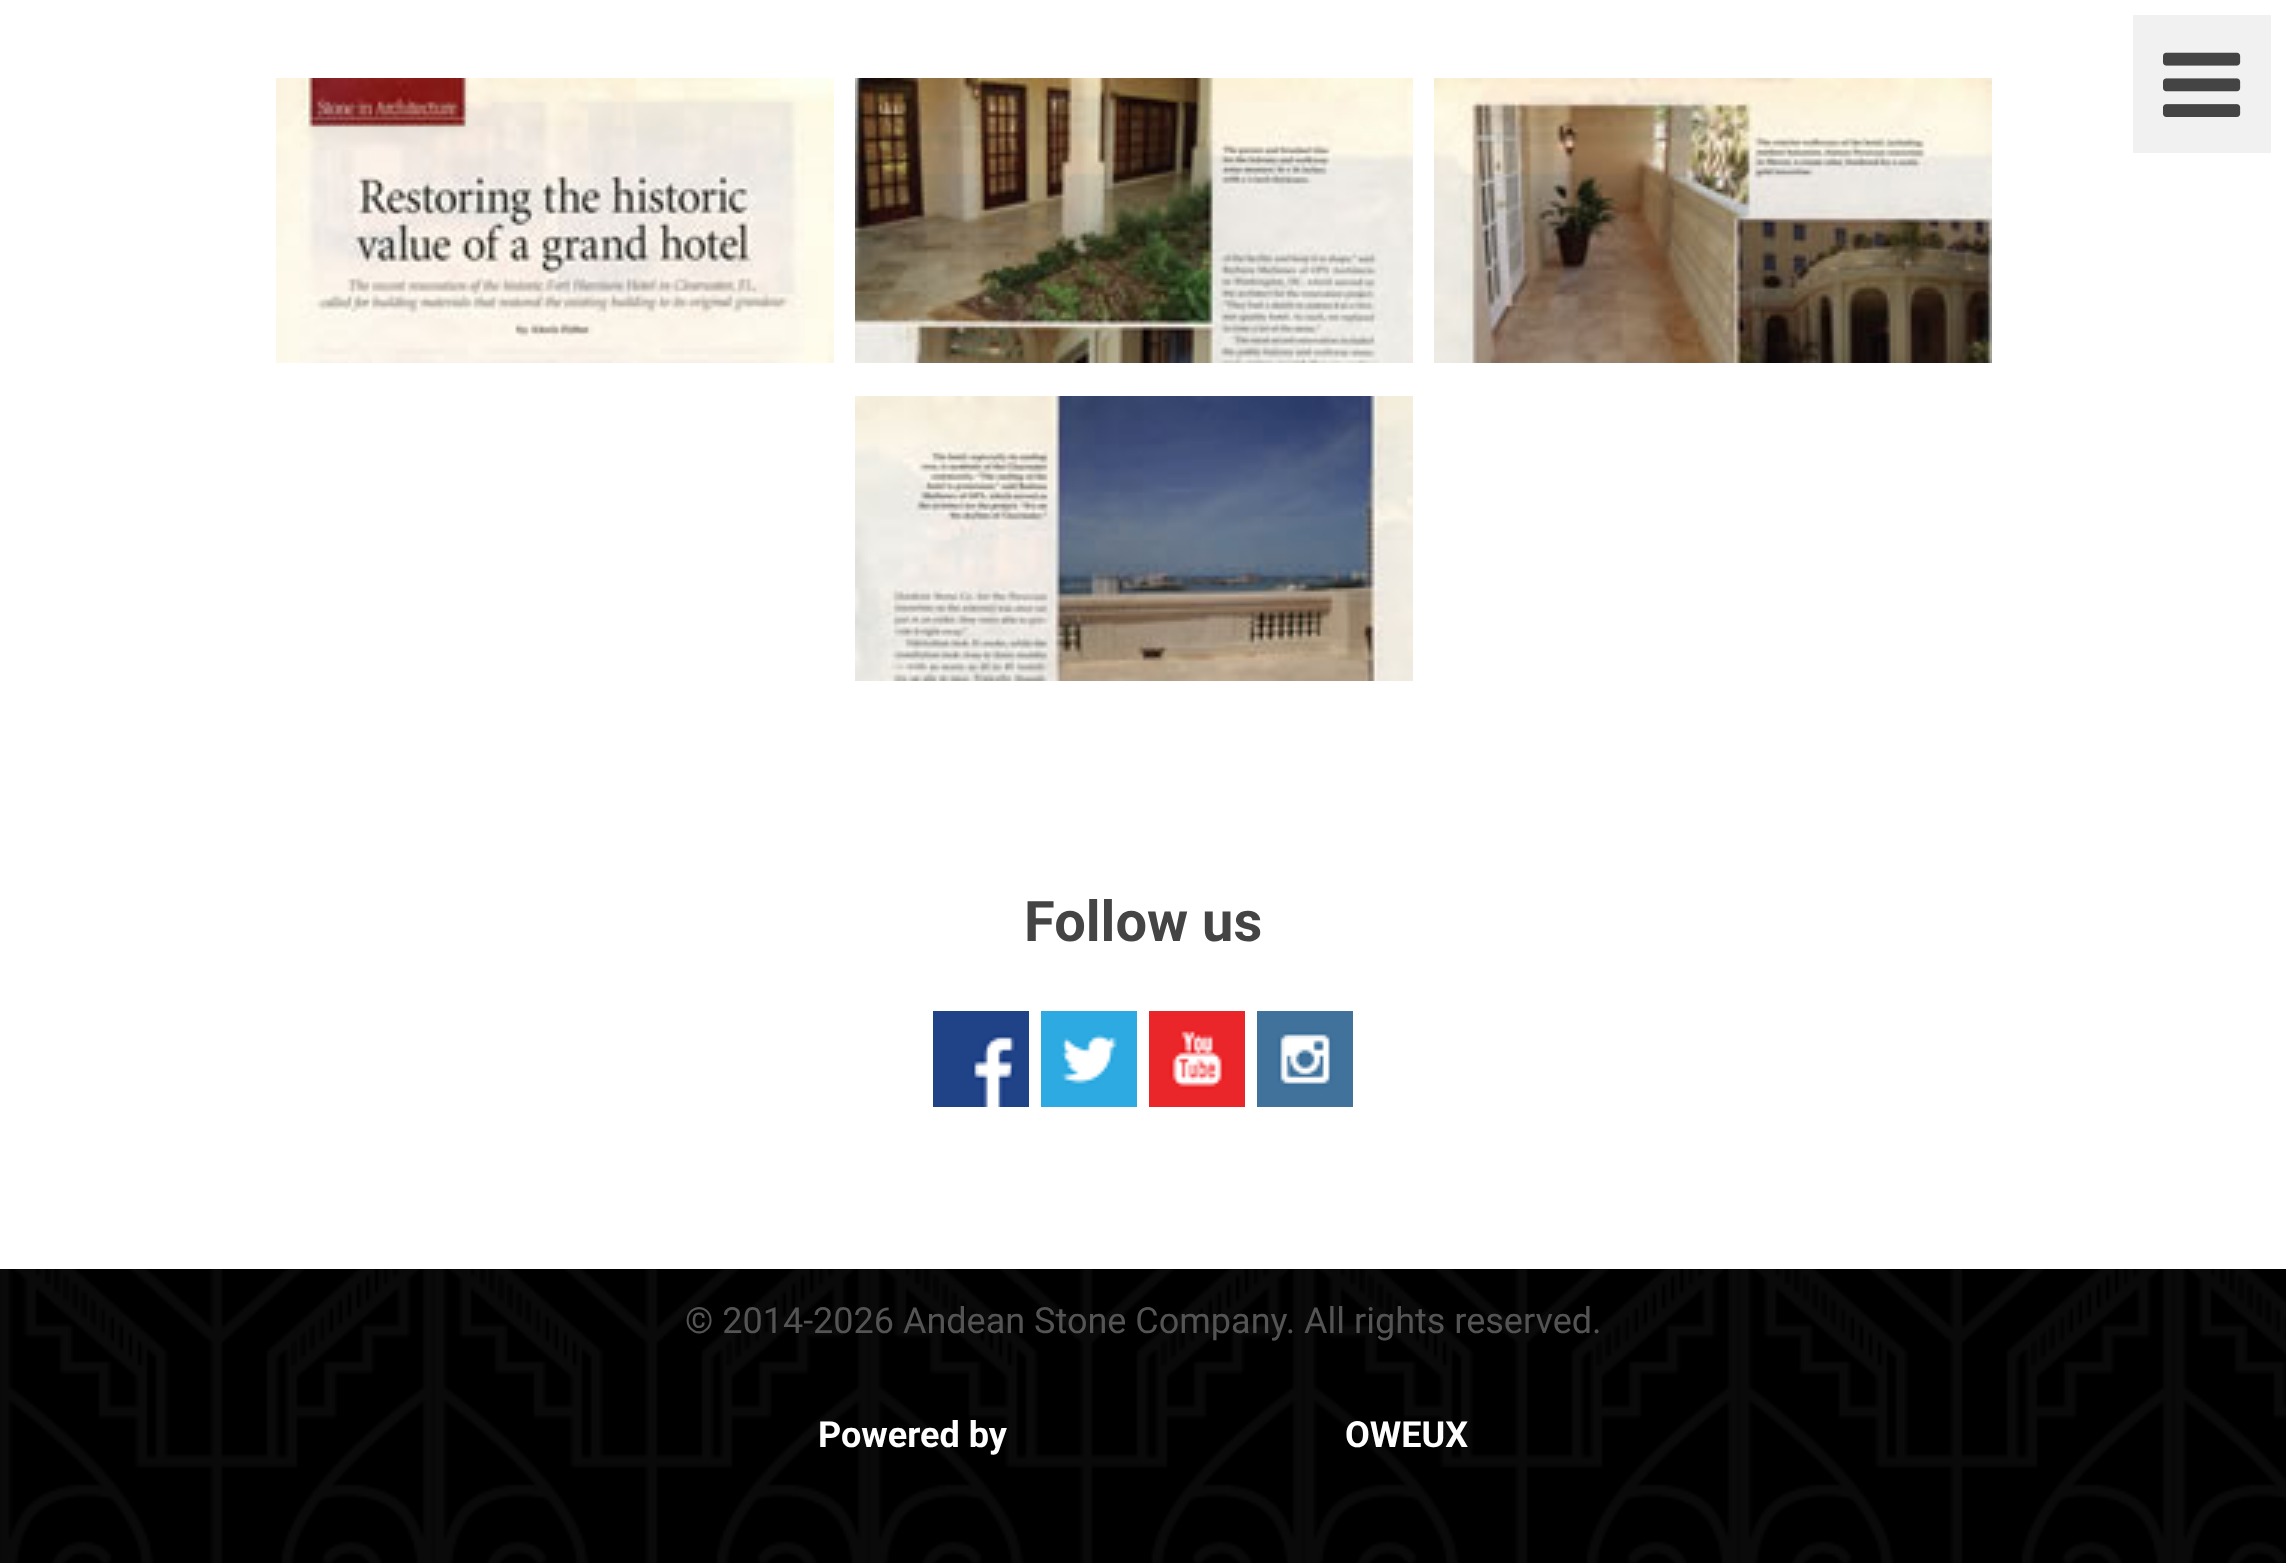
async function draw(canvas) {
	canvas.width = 2286;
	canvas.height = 1563;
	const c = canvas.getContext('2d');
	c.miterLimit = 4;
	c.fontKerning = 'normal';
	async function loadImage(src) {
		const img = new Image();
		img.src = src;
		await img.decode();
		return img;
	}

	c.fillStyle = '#000';
	c.fillRect(0, 0, 2286, 1563);
	c.drawImage(await loadImage('img1.png'), 0, 1269, 2286, 294);
	c.fillStyle = '#fff';
	c.fillRect(0, 0, 2286, 1269);
	c.drawImage(await loadImage('img2.png'), 276, 78, 558, 285);
	c.drawImage(await loadImage('img3.png'), 855, 78, 558, 285);
	c.drawImage(await loadImage('img4.png'), 1434, 78, 558, 285);
	c.drawImage(await loadImage('img5.png'), 855, 396, 558, 285);
	c.fillStyle = '#f1f1f1';
	c.fillRect(2133, 15, 138, 138);
	c.drawImage(await loadImage('img6.png'), 2163, 52, 78, 65);
	c.font = 'bold 56px Roboto';
	c.fillStyle = '#444';
	c.fillText('Follow us', 1024, 941);
	c.drawImage(await loadImage('img7.png'), 933, 1011, 96, 96);
	c.drawImage(await loadImage('img8.png'), 1041, 1011, 96, 96);
	c.drawImage(await loadImage('img9.png'), 1149, 1011, 96, 96);
	c.drawImage(await loadImage('img10.png'), 1257, 1011, 96, 96);
	c.font = '36px Roboto';
	c.fillStyle = '#545454';
	c.fillText('© 2014-2026 Andean Stone Company. All rights reserved.', 685, 1333);
	c.font = 'bold 36px Roboto';
	c.fillStyle = '#fff';
	c.fillText('Powered by', 818, 1447);
	c.fillText('OWEUX', 1345, 1447);
}

draw(document.querySelector('canvas'));
